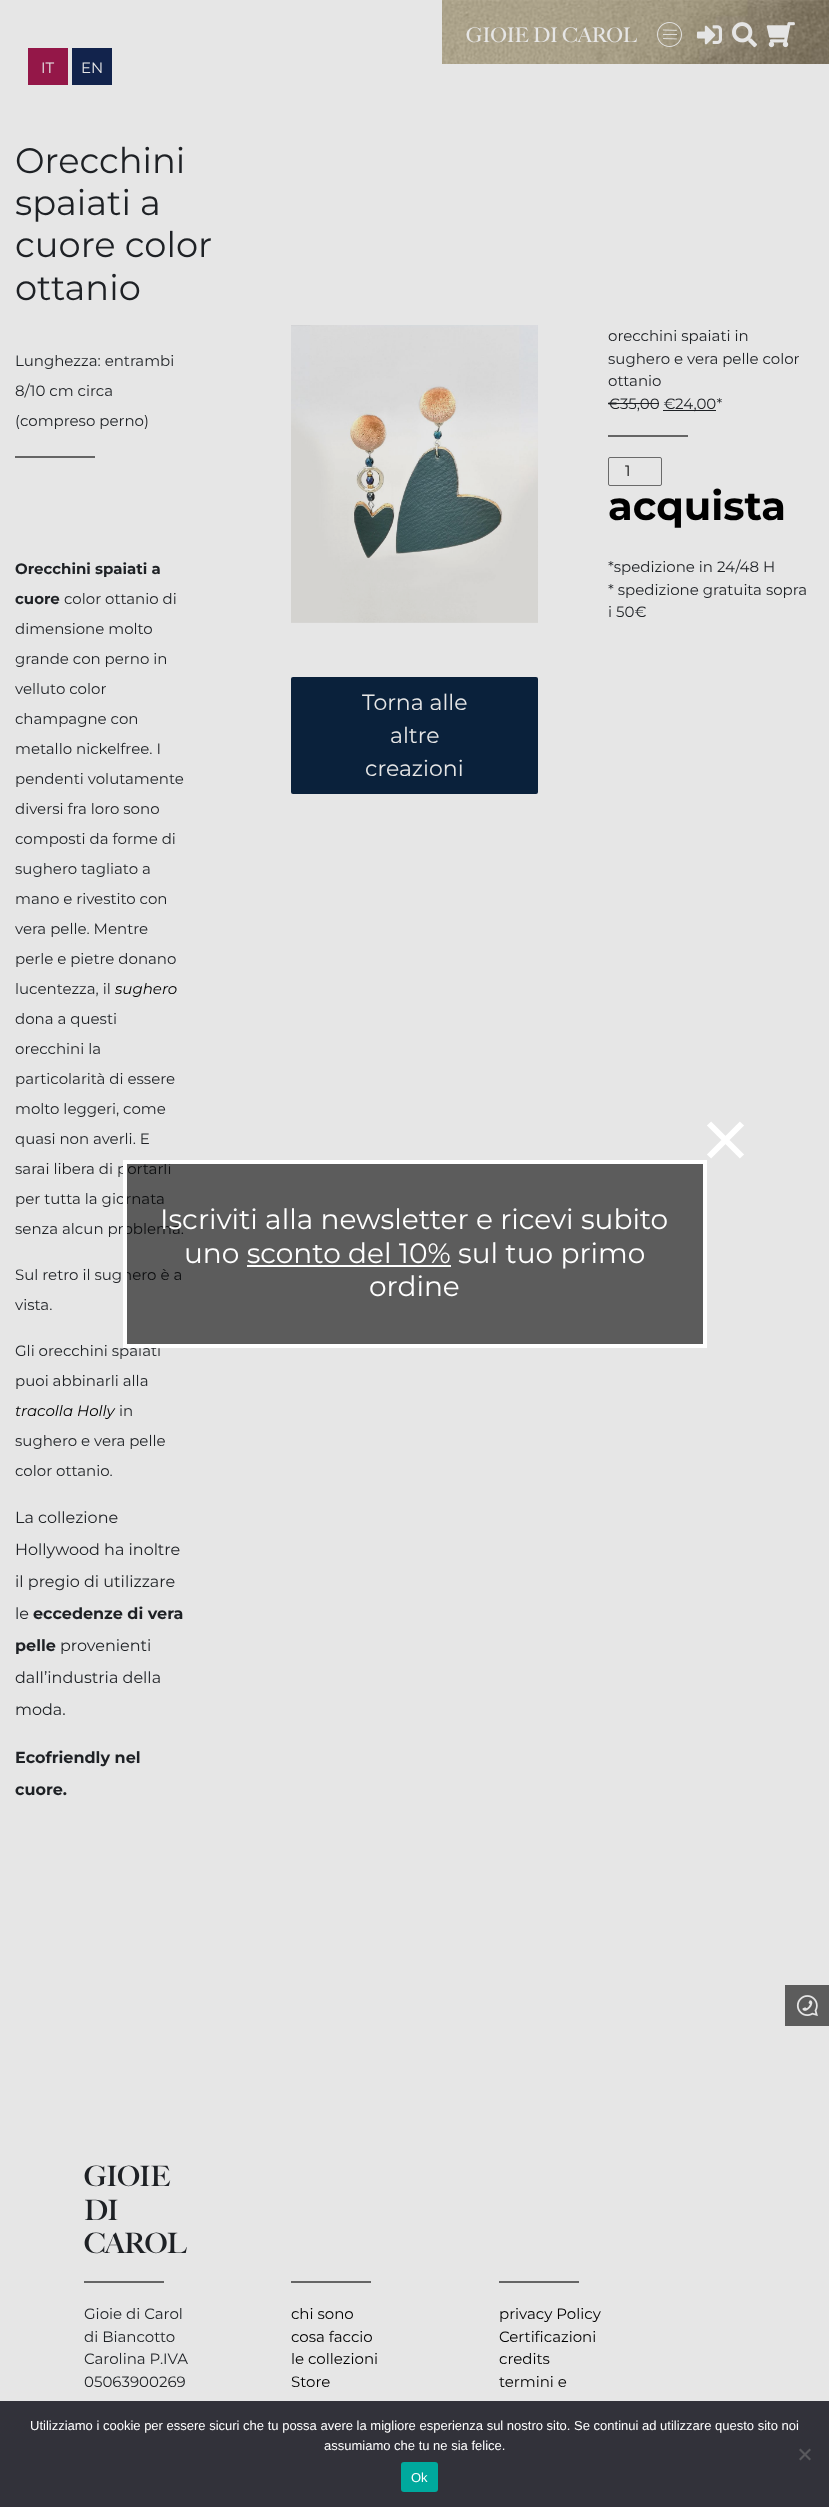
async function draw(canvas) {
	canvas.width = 829;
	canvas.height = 2507;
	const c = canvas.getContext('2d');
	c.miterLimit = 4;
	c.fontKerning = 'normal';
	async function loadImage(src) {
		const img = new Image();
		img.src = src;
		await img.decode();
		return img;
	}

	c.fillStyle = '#e6e6e6';
	c.fillRect(0, 0, 829, 2507);
	c.drawImage(await loadImage('img1.png'), 442, 0, 387, 64);
	c.font = '20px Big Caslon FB';
	c.fillText('GIOIE DI CAROL', 466, 42);
	c.drawImage(await loadImage('img2.png'), 657, 22, 25, 25);
	c.drawImage(await loadImage('img3.png'), 697, 25, 25, 20);
	c.drawImage(await loadImage('img4.png'), 732, 22, 25, 26);
	c.drawImage(await loadImage('img5.png'), 766, 22, 29, 26);
	c.fillStyle = '#941748';
	c.fillRect(28, 48, 40, 37);
	c.font = '15px Montserrat';
	c.fillStyle = '#e6e6e6';
	c.fillText('IT', 41, 73);
	c.fillStyle = '#12234c';
	c.fillRect(72, 48, 40, 37);
	c.fillStyle = '#e6e6e6';
	c.fillText('EN', 81, 73);
	c.font = '35.25px Montserrat';
	c.fillStyle = '#1e2125';
	for (const [text, x, y] of [
		['Orecchini', 15, 173],
		['spaiati a', 15, 215],
		['cuore color', 15, 257],
		['ottanio', 15, 300],
	]) {
		c.fillText(text, x, y);
	}
	c.font = '15px Montserrat';
	for (const [text, x, y] of [
		['Lunghezza: entrambi', 15, 366],
		['8/10 cm circa', 15, 396],
		['(compreso perno)', 15, 426],
	]) {
		c.fillText(text, x, y);
	}
	c.fillStyle = '#656565';
	c.fillRect(15, 456, 80, 2);
	c.font = 'bold 15px Montserrat';
	c.fillStyle = '#1e2125';
	c.fillText('Orecchini spaiati a', 15, 574);
	c.fillText('cuore', 15, 604);
	c.font = '15px Montserrat';
	for (const [text, x, y] of [
		['color ottanio di', 64, 604],
		['dimensione molto', 15, 634],
		['grande con perno in', 15, 664],
		['velluto color', 15, 694],
		['champagne con', 15, 724],
		['metallo nickelfree. I', 15, 754],
		['pendenti volutamente', 15, 784],
		['diversi fra loro sono', 15, 814],
		['composti da forme di', 15, 844],
		['sughero tagliato a', 15, 874],
		['mano e rivestito con', 15, 904],
		['vera pelle. Mentre', 15, 934],
		['perle e pietre donano', 15, 964],
		['lucentezza, il', 15, 994],
	]) {
		c.fillText(text, x, y);
	}
	c.font = 'italic 100 15px Montserrat';
	c.fillStyle = '#000';
	c.fillText('sughero', 115, 994);
	c.font = '15px Montserrat';
	c.fillStyle = '#1e2125';
	for (const [text, x, y] of [
		['dona a questi', 15, 1024],
		['orecchini la', 15, 1054],
		['particolarità di essere', 15, 1084],
		['molto leggeri, come', 15, 1114],
		['quasi non averli. E', 15, 1144],
		['sarai libera di portarli', 15, 1174],
		['per tutta la giornata', 15, 1204],
		['senza alcun problema.', 15, 1234],
		['Sul retro il sughero è a', 15, 1280],
		['vista.', 15, 1310],
		['Gli orecchini spaiati', 15, 1356],
		['puoi abbinarli alla', 15, 1386],
	]) {
		c.fillText(text, x, y);
	}
	c.font = 'italic 100 15px Montserrat';
	c.fillStyle = '#000';
	c.fillText('tracolla Holly', 15, 1416);
	c.font = '15px Montserrat';
	c.fillStyle = '#1e2125';
	for (const [text, x, y] of [
		['in', 119, 1416],
		['sughero e vera pelle', 15, 1446],
		['color ottanio.', 15, 1476],
	]) {
		c.fillText(text, x, y);
	}
	c.font = '16px Montserrat';
	for (const [text, x, y] of [
		['La collezione', 15, 1523],
		['Hollywood ha inoltre', 15, 1555],
		['il pregio di utilizzare', 15, 1587],
		['le', 15, 1619],
	]) {
		c.fillText(text, x, y);
	}
	c.font = 'bold 16px Montserrat';
	c.fillText('eccedenze di vera', 33, 1619);
	c.fillText('pelle', 15, 1651);
	c.font = '16px Montserrat';
	for (const [text, x, y] of [
		['provenienti', 60, 1651],
		['dall’industria della', 15, 1683],
		['moda.', 15, 1715],
	]) {
		c.fillText(text, x, y);
	}
	c.font = 'bold 16px Montserrat';
	c.fillText('Ecofriendly nel', 15, 1763);
	c.fillText('cuore.', 15, 1795);
	c.font = '15px Montserrat';
	for (const [text, x, y] of [
		['orecchini spaiati in', 608, 341],
		['sughero e vera pelle color', 608, 364],
		['ottanio', 608, 386],
		['€', 608, 409],
	]) {
		c.fillText(text, x, y);
	}
	c.fillRect(608, 403, 12, 1);
	c.fillRect(620, 403, 39, 1);
	c.fillText('35,00 €', 620, 409);
	c.fillRect(663, 410, 53, 1);
	c.fillText('24,00*', 675, 409);
	c.fillStyle = '#656565';
	c.fillRect(608, 435, 80, 2);
	c.beginPath();
	c.roundRect(608.5, 457.5, 53, 28, 1.5);
	c.strokeStyle = '#6a6a6a';
	c.stroke();
	c.fillStyle = '#000';
	c.fillText('1', 625, 476);
	c.font = 'bold 40px Montserrat';
	c.fillText('acquista', 608, 520);
	c.font = '15px Montserrat';
	c.fillStyle = '#1e2125';
	for (const [text, x, y] of [
		['*spedizione in 24/48 H', 608, 572],
		['* spedizione gratuita sopra', 608, 595],
		['i 50€', 608, 617],
	]) {
		c.fillText(text, x, y);
	}
	c.drawImage(await loadImage('img6.png'), 291, 325, 247, 298);
	c.fillStyle = '#0a213b';
	c.beginPath();
	c.roundRect(291, 677, 247, 117, 2);
	c.fill();
	c.font = '22px Montserrat';
	c.fillStyle = '#e6e6e6';
	for (const [text, x, y] of [
		['Torna alle', 362, 710],
		['altre', 390, 743],
		['creazioni', 365, 776],
	]) {
		c.fillText(text, x, y);
	}
	c.fillStyle = '#00000099';
	c.beginPath();
	c.rect(125, 1162, 580, 184);
	c.fill();
	c.strokeStyle = '#fff';
	c.lineWidth = 4;
	c.stroke();
	c.beginPath();
	c.moveTo(709, 1156.5);
	c.lineTo(742, 1123.5);
	c.moveTo(709, 1123.5);
	c.lineTo(742, 1156.5);
	c.lineWidth = 6;
	c.stroke();
	c.font = '28px Montserrat';
	c.fillStyle = '#fff';
	c.fillText('Iscriviti alla newsletter e ricevi subito', 160, 1229);
	c.fillText('uno sconto del 10% sul tuo primo', 184, 1263);
	c.fillRect(247, 1265, 204, 2);
	c.fillText('ordine', 369, 1296);
	c.fillStyle = '#5c5c5c';
	c.fillRect(785, 1985, 44, 41);
	c.drawImage(await loadImage('img7.png'), 796, 1995, 22, 21);
	c.letterSpacing = '-0.5px';
	c.font = 'bold 28px Big Caslon FB';
	c.fillStyle = '#1e2125';
	for (const [text, x, y] of [
		['GIOIE', 84, 2186],
		['DI', 84, 2220],
		['CAROL', 84, 2253],
	]) {
		c.fillText(text, x, y);
	}
	c.fillStyle = '#656565';
	c.fillRect(84, 2281, 80, 2);
	c.letterSpacing = '0px';
	c.font = '15px Montserrat';
	c.fillStyle = '#1e2125';
	for (const [text, x, y] of [
		['Gioie di Carol', 84, 2319],
		['di Biancotto', 84, 2342],
		['Carolina P.IVA', 84, 2364],
		['05063900269', 84, 2387],
	]) {
		c.fillText(text, x, y);
	}
	c.fillStyle = '#656565';
	c.fillRect(291, 2281, 80, 2);
	c.fillStyle = '#000';
	for (const [text, x, y] of [
		['chi sono', 291, 2319],
		['cosa faccio', 291, 2342],
		['le collezioni', 291, 2364],
		['Store', 291, 2387],
	]) {
		c.fillText(text, x, y);
	}
	c.fillStyle = '#656565';
	c.fillRect(499, 2281, 80, 2);
	c.fillStyle = '#000';
	for (const [text, x, y] of [
		['privacy Policy', 499, 2319],
		['Certificazioni', 499, 2342],
		['credits', 499, 2364],
		['termini e', 499, 2387],
	]) {
		c.fillText(text, x, y);
	}
	c.fillStyle = '#32323a';
	c.fillRect(0, 2401, 829, 106);
	c.font = '13px Liberation Sans';
	c.fillStyle = '#fff';
	c.fillText('Utilizziamo i cookie per essere sicuri che tu possa avere la migliore esperienza sul nostro sito. Se continui ad utilizzare questo sito noi', 30, 2430);
	c.fillText('assumiamo che tu ne sia felice.', 324, 2450);
	c.fillStyle = '#59595d';
	c.beginPath();
	c.moveTo(809.5, 2448.5);
	c.lineTo(811, 2450);
	c.lineTo(800.5, 2460.5);
	c.lineTo(799, 2459);
	c.closePath();
	c.fill();
	c.beginPath();
	c.moveTo(799, 2450);
	c.lineTo(800.5, 2448.5);
	c.lineTo(811, 2459);
	c.lineTo(809.5, 2460.5);
	c.closePath();
	c.fill();
	c.fillStyle = '#00a99d';
	c.beginPath();
	c.roundRect(401, 2462, 37, 30, 3);
	c.fill();
	c.fillStyle = '#fff';
	c.fillText('Ok', 411, 2482);
}

draw(document.querySelector('canvas'));
